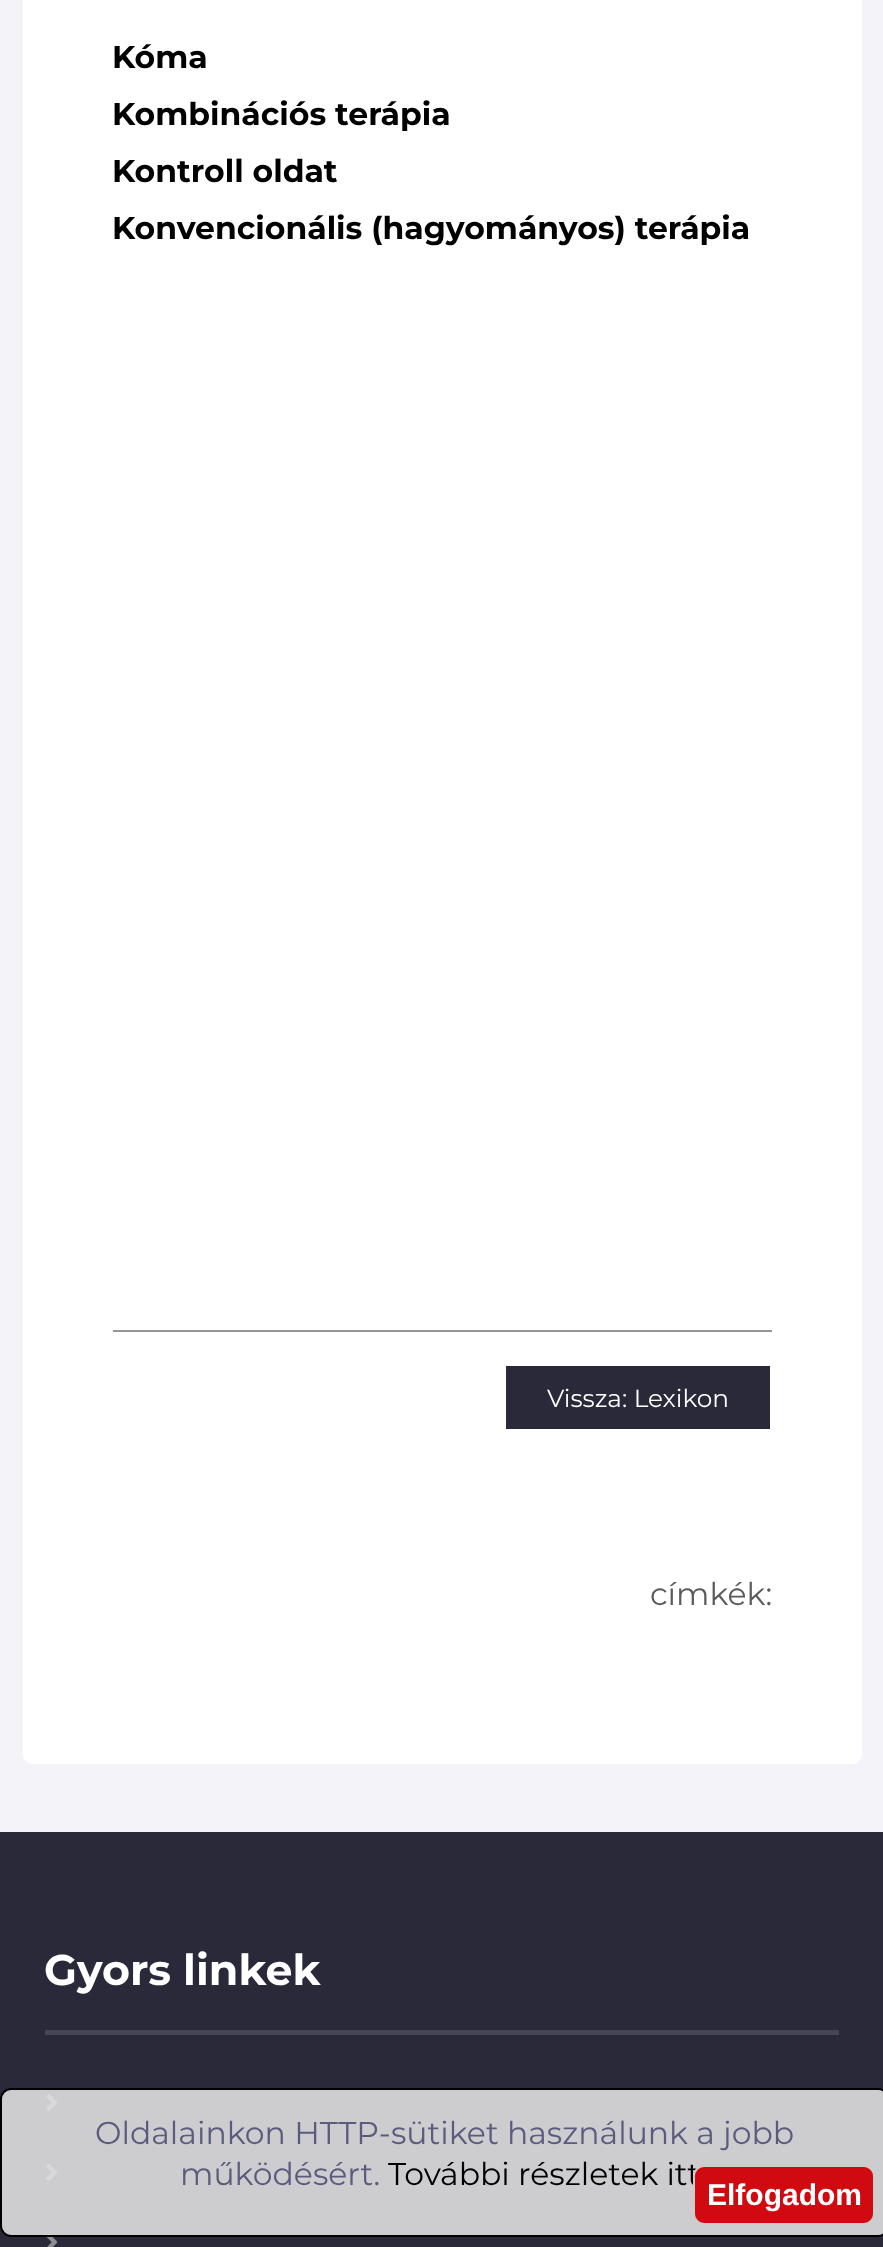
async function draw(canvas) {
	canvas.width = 883;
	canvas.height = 2247;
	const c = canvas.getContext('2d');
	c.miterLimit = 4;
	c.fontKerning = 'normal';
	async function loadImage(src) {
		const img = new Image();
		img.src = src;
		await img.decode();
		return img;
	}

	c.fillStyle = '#f3f3f9';
	c.fillRect(0, 0, 883, 2247);
	c.fillStyle = '#fff';
	c.beginPath();
	c.roundRect(23, -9, 839, 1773, 9);
	c.fill();
	c.font = 'bold 31.5px Montserrat';
	c.fillStyle = '#000';
	for (const [text, x, y] of [
		['Kóma', 112, 68],
		['Kombinációs terápia', 112, 125],
		['Kontroll oldat', 112, 182],
		['Konvencionális (hagyományos) terápia', 112, 239],
	]) {
		c.fillText(text, x, y);
	}
	c.fillStyle = '#959595';
	c.fillRect(113, 1330, 659, 2);
	c.fillStyle = '#29293a';
	c.fillRect(506, 1366, 264, 63);
	c.font = '24.75px Montserrat';
	c.fillStyle = '#fff';
	c.fillText('Vissza: Lexikon', 547, 1407);
	c.font = '31.5px Montserrat';
	c.fillStyle = '#5b5b5b';
	c.fillText('címkék:', 650, 1605);
	c.fillStyle = '#29293a';
	c.fillRect(0, 1832, 883, 415);
	c.fillStyle = '#454554';
	c.fillRect(45, 2030, 794, 5);
	c.font = 'bold 42.75px Montserrat';
	c.fillStyle = '#fff';
	c.fillText('Gyors linkek', 44, 1985);
	c.drawImage(await loadImage('img1.png'), 46, 2094, 12, 17);
	c.drawImage(await loadImage('img2.png'), 46, 2164, 12, 17);
	c.drawImage(await loadImage('img3.png'), 46, 2233, 12, 14);
	c.fillStyle = '#e4e4e4e0';
	c.beginPath();
	c.roundRect(1, 2089, 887, 147, 10);
	c.fill();
	c.strokeStyle = '#000';
	c.lineWidth = 2;
	c.stroke();
	c.font = '31.5px Montserrat';
	c.fillStyle = '#5b5b7e';
	c.fillText('Oldalainkon HTTP-sütiket használunk a jobb', 95, 2144);
	c.fillText('működésért.', 180, 2185);
	c.fillStyle = '#000';
	c.fillText('További részletek itt', 388, 2185);
	c.fillStyle = '#d10a11';
	c.beginPath();
	c.roundRect(694, 2166, 180, 58, 10);
	c.fill();
	c.strokeStyle = '#ccc';
	c.stroke();
	c.font = 'bold 30px Liberation Sans';
	c.fillStyle = '#fff';
	c.fillText('Elfogadom', 707, 2205);
}

draw(document.querySelector('canvas'));
